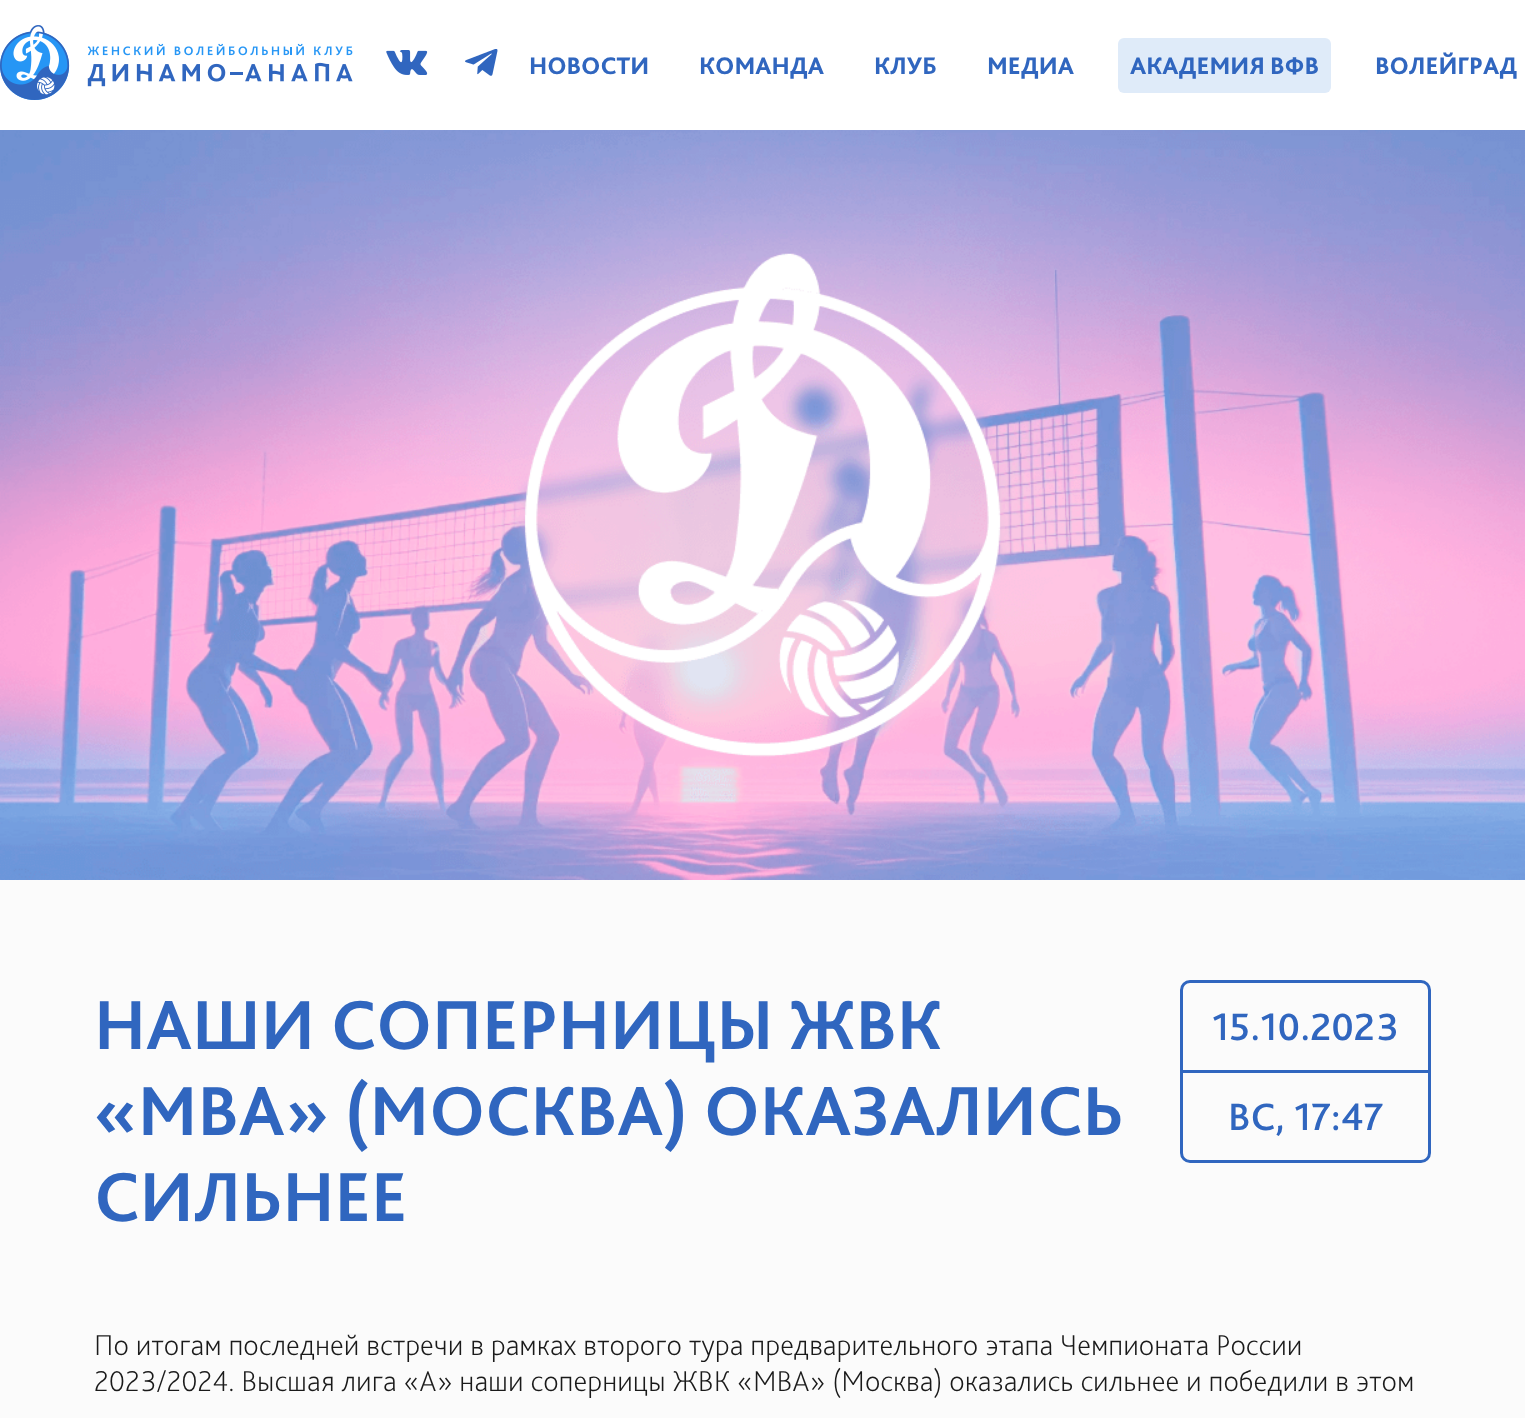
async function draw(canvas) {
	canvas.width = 1525;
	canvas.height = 1418;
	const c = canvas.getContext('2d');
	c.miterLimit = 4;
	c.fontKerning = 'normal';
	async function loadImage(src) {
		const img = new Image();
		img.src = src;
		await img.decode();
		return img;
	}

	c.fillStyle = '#fbfbfb';
	c.fillRect(0, 0, 1525, 1418);
	c.fillStyle = '#fff';
	c.fillRect(0, 0, 1525, 130);
	c.drawImage(await loadImage('img1.png'), 0, 25, 353, 75);
	c.drawImage(await loadImage('img2.png'), 386, 50, 42, 25);
	c.drawImage(await loadImage('img3.png'), 465, 49, 33, 27);
	c.font = '800 25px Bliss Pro';
	c.fillStyle = '#3066bf';
	for (const [text, x, y] of [
		['НОВОСТИ', 529, 74],
		['КОМАНДА', 699, 74],
		['КЛУБ', 874, 74],
		['МЕДИА', 987, 74],
	]) {
		c.fillText(text, x, y);
	}
	c.fillStyle = '#dfebf9';
	c.beginPath();
	c.roundRect(1118, 38, 213, 55, 6);
	c.fill();
	c.fillStyle = '#3066bf';
	c.fillText('АКАДЕМИЯ ВФВ', 1130, 74);
	c.fillText('ВОЛЕЙГРАД', 1375, 74);
	c.drawImage(await loadImage('img4.png'), 0, 130, 1525, 750);
	c.font = 'bold 72.5px Bliss Pro';
	for (const [text, x, y] of [
		['НАШИ СОПЕРНИЦЫ ЖВК', 94, 1049],
		['«МВА» (МОСКВА) ОКАЗАЛИСЬ', 94, 1135],
		['СИЛЬНЕЕ', 94, 1221],
	]) {
		c.fillText(text, x, y);
	}
	c.beginPath();
	c.roundRect(1181.5, 981.5, 248, 180, 8.5);
	c.strokeStyle = '#3066bf';
	c.lineWidth = 3;
	c.stroke();
	c.fillRect(1183, 1070, 246, 3);
	c.font = '500 40px Bliss Pro';
	c.fillText('15.10.2023', 1212, 1040);
	c.fillText('ВС, 17:47', 1228, 1130);
	c.font = '200 30px Bliss Pro';
	c.fillStyle = '#1a1a1a';
	c.fillText('По итогам последней встречи в рамках второго тура предварительного этапа Чемпионата России', 94, 1355);
	c.fillText('2023/2024. Высшая лига «А» наши соперницы ЖВК «МВА» (Москва) оказались сильнее и победили в этом', 94, 1391);
}

draw(document.querySelector('canvas'));
